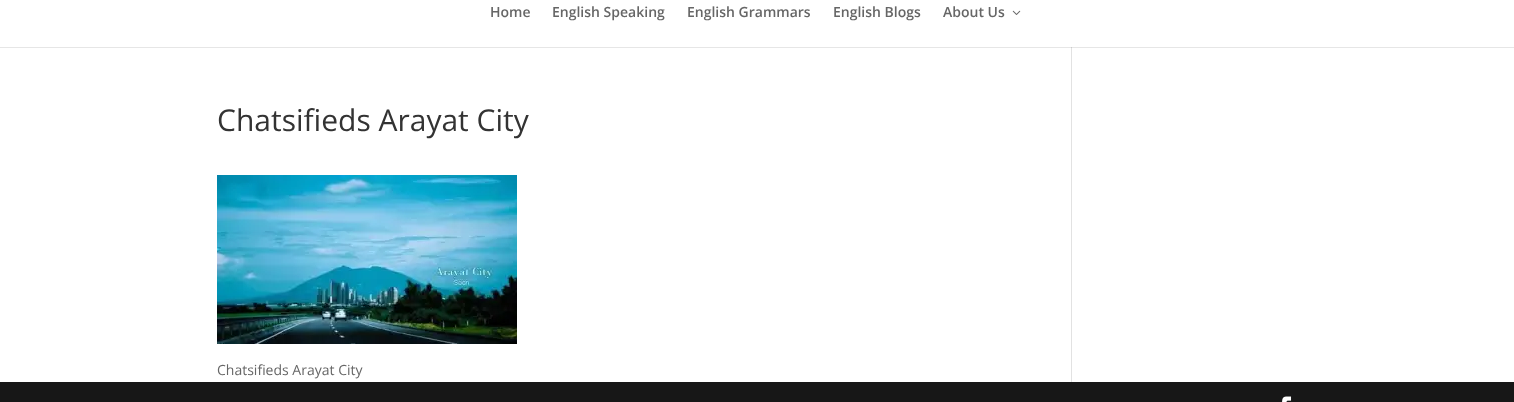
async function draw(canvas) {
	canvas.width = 1514;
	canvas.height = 402;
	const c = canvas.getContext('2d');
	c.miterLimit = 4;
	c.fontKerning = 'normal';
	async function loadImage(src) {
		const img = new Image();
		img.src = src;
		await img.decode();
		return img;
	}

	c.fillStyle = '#fff';
	c.fillRect(0, 0, 1514, 402);
	c.fillStyle = '#e6e6e6';
	c.fillRect(0, 47, 1514, 1);
	c.font = '600 14px Open Sans';
	c.fillStyle = '#666';
	for (const [text, x, y] of [
		['Home', 490, 17],
		['English Speaking', 552, 17],
		['English Grammars', 687, 17],
		['English Blogs', 833, 17],
		['About Us', 943, 17],
	]) {
		c.fillText(text, x, y);
	}
	c.drawImage(await loadImage('img1.png'), 1012, 10, 9, 5);
	c.font = '30px Open Sans';
	c.fillStyle = '#333';
	c.fillText('Chatsifieds Arayat City', 217, 131);
	c.drawImage(await loadImage('img2.png'), 217, 175, 300, 169);
	c.font = '14px Open Sans';
	c.fillStyle = '#666';
	c.fillText('Chatsifieds Arayat City', 217, 375);
	for (const [x, y, w, h, color] of [
		[1071, 47, 1, 335, '#e2e2e2'],
		[1071, 47, 1, 1, '#cbcbcb'],
		[0, 382, 1514, 20, '#171717'],
	]) {
		c.fillStyle = color;
		c.fillRect(x, y, w, h);
	}
	c.drawImage(await loadImage('img3.png'), 1282, 396, 10, 6);
}

draw(document.querySelector('canvas'));
